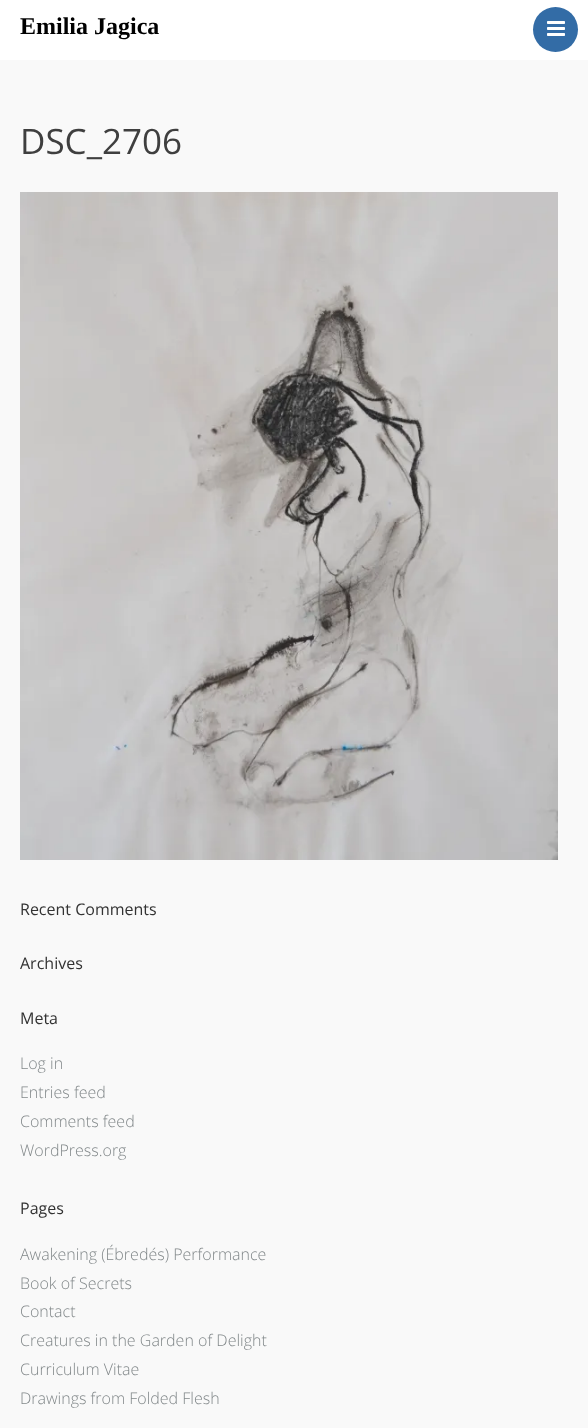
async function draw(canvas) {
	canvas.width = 588;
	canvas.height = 1428;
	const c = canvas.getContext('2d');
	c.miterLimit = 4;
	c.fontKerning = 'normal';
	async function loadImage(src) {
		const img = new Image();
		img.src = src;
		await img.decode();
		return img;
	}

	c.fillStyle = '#f9f9f9';
	c.fillRect(0, 0, 588, 1428);
	c.fillStyle = '#fff';
	c.fillRect(0, 0, 588, 60);
	c.font = 'bold 24px Liberation Serif';
	c.fillStyle = '#000';
	c.fillText('Emilia Jagica', 20, 34);
	c.fillStyle = '#336ca6';
	c.beginPath();
	c.arc(555.5, 29.5, 22.5, 0, 2 * Math.PI);
	c.fill();
	c.drawImage(await loadImage('img1.png'), 547, 21, 18, 15);
	c.font = '35px Open Sans';
	c.fillStyle = '#3f3f3f';
	c.fillText('DSC_2706', 20, 154);
	c.drawImage(await loadImage('img2.png'), 20, 192, 538, 668);
	c.font = '16px Open Sans';
	c.fillStyle = '#333';
	for (const [text, x, y] of [
		['Recent Comments', 20, 915],
		['Archives', 20, 969],
		['Meta', 20, 1024],
	]) {
		c.fillText(text, x, y);
	}
	c.font = '300 16px Open Sans';
	c.fillStyle = '#82888a';
	for (const [text, x, y] of [
		['Log in', 20, 1069],
		['Entries feed', 20, 1098],
		['Comments feed', 20, 1127],
		['WordPress.org', 20, 1156],
	]) {
		c.fillText(text, x, y);
	}
	c.font = '16px Open Sans';
	c.fillStyle = '#333';
	c.fillText('Pages', 20, 1214);
	c.font = '300 16px Open Sans';
	c.fillStyle = '#82888a';
	for (const [text, x, y] of [
		['Awakening (Ébredés) Performance', 20, 1260],
		['Book of Secrets', 20, 1289],
		['Contact', 20, 1317],
		['Creatures in the Garden of Delight', 20, 1346],
		['Curriculum Vitae', 20, 1375],
		['Drawings from Folded Flesh', 20, 1404],
	]) {
		c.fillText(text, x, y);
	}
}

draw(document.querySelector('canvas'));
